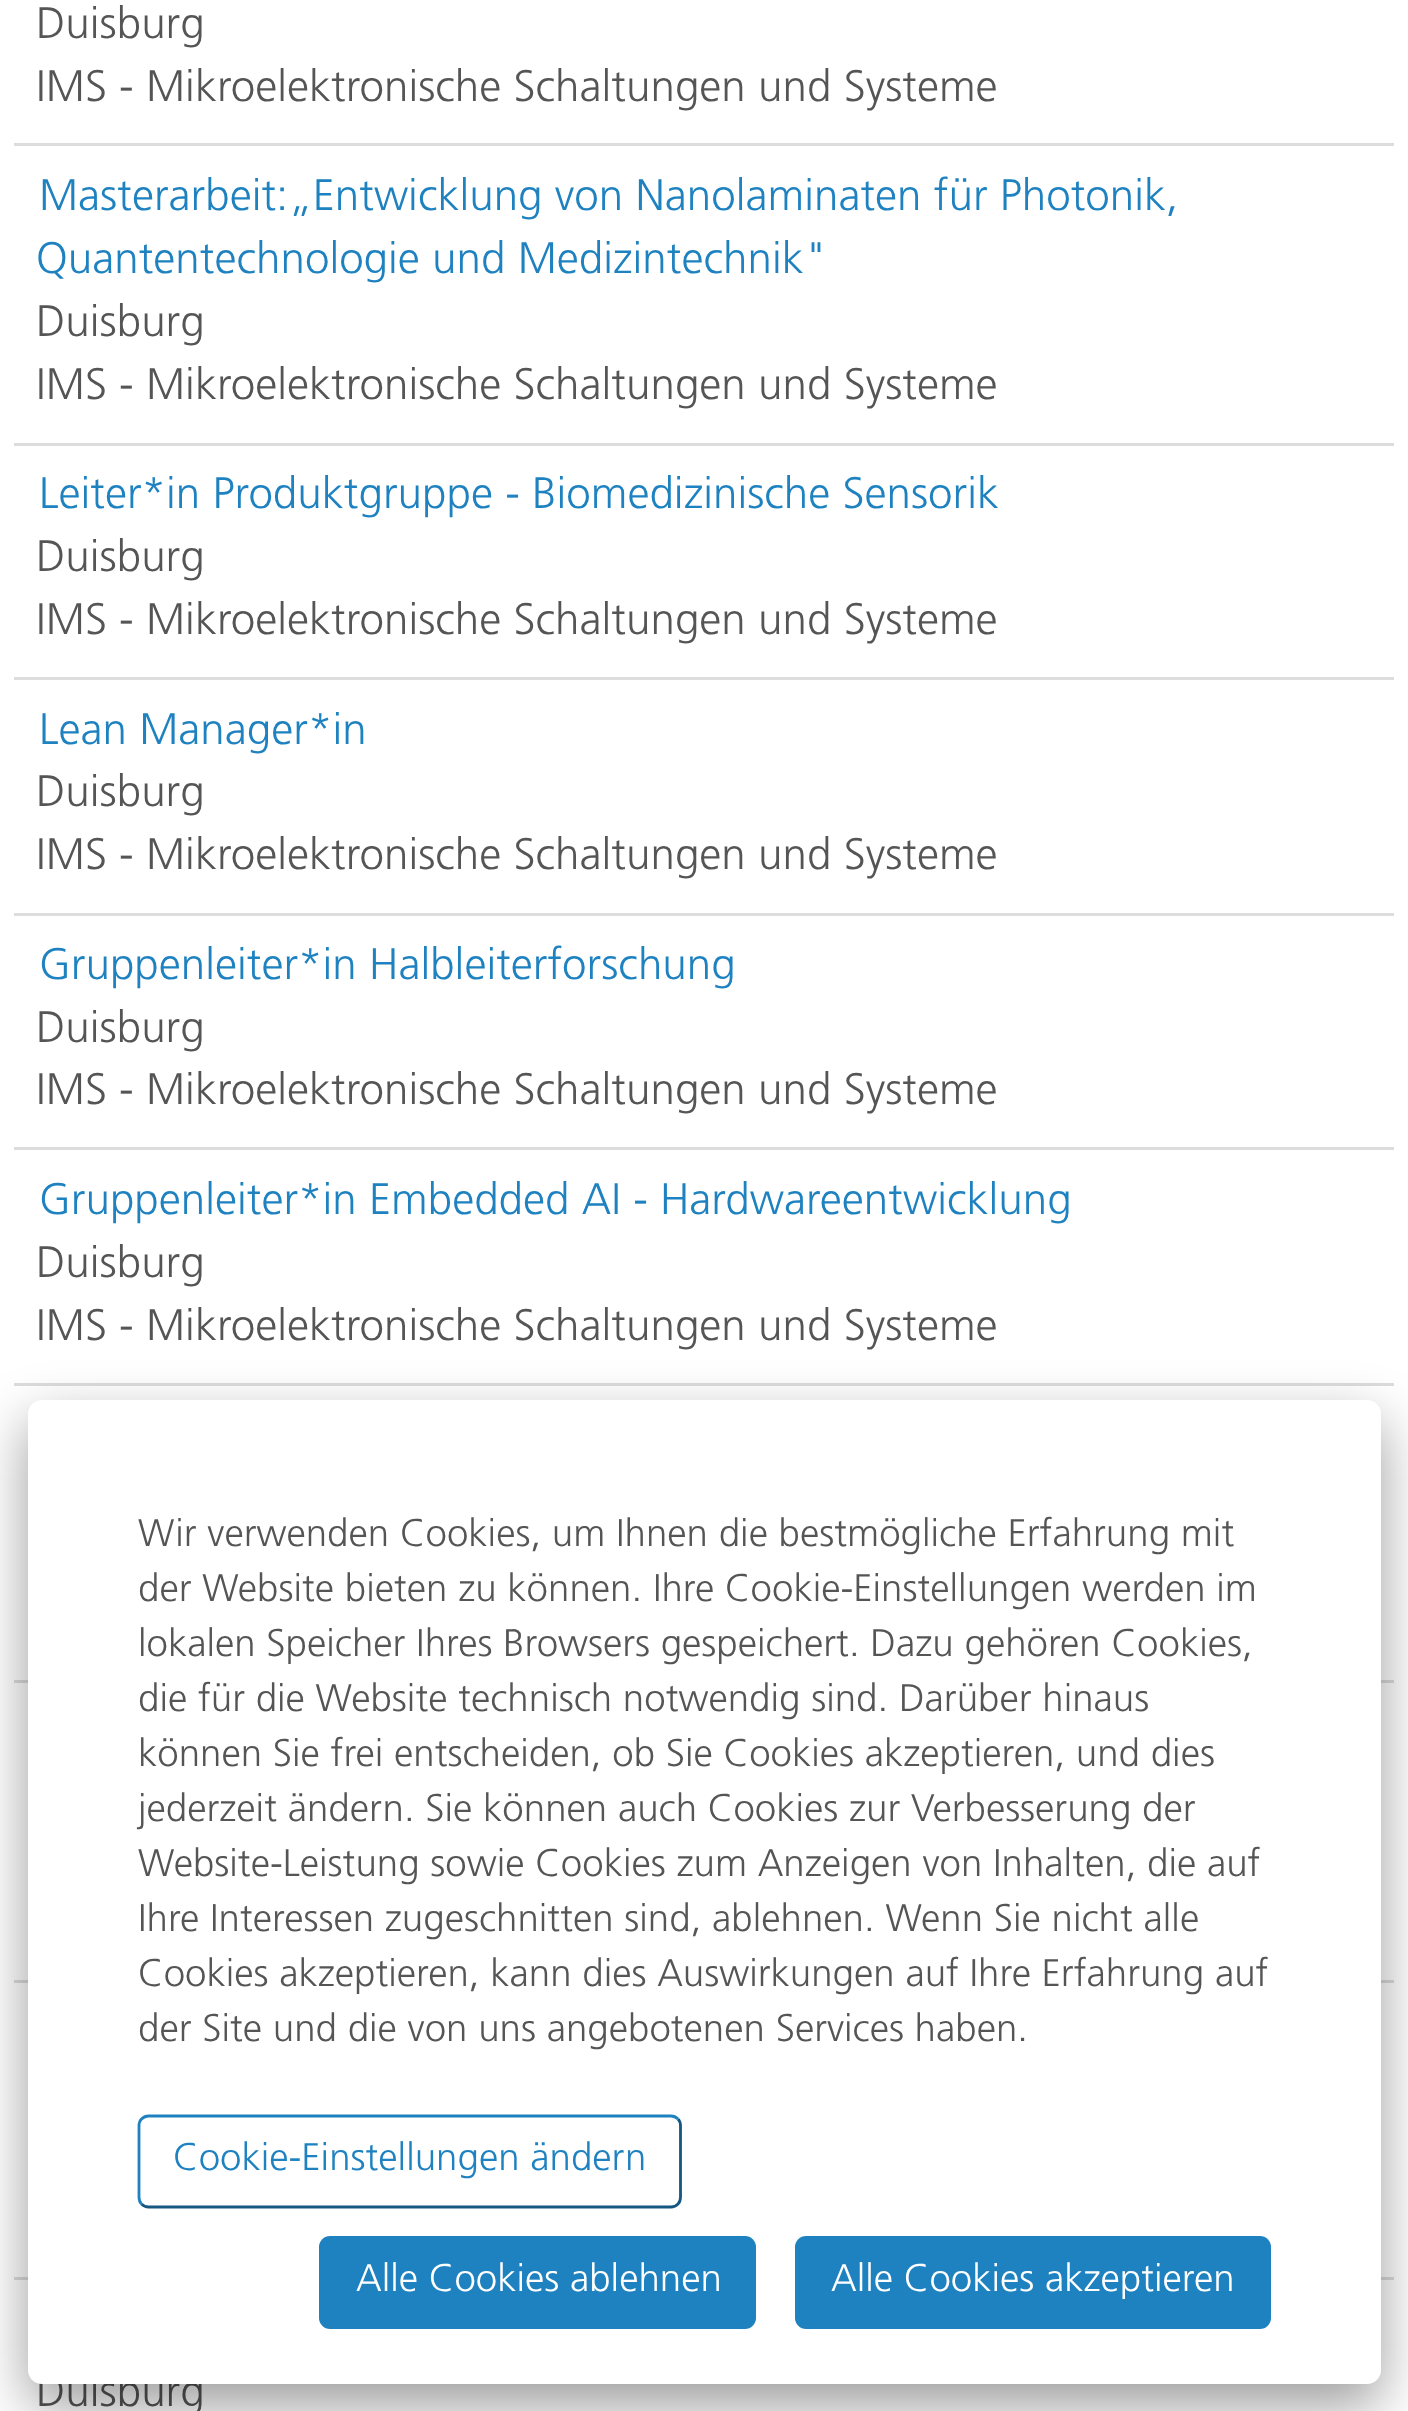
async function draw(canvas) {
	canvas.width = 1408;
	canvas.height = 2411;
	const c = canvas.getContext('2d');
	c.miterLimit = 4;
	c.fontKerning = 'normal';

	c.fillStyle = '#fff';
	c.fillRect(0, 0, 1408, 2411);
	c.font = '300 44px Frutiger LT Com';
	c.fillStyle = '#555';
	c.fillText('Duisburg', 36, 38);
	c.fillText('IMS - Mikroelektronische Schaltungen und Systeme', 36, 101);
	c.fillStyle = '#ddd';
	c.fillRect(14, 143, 1380, 3);
	c.fillStyle = '#1f82c0';
	c.fillText('Masterarbeit:„Entwicklung von Nanolaminaten für Photonik,', 39, 210);
	c.fillText('Quantentechnologie und Medizintechnik"', 36, 273);
	c.fillStyle = '#555';
	c.fillText('Duisburg', 36, 336);
	c.fillText('IMS - Mikroelektronische Schaltungen und Systeme', 36, 399);
	c.fillStyle = '#ddd';
	c.fillRect(14, 443, 1380, 3);
	c.fillStyle = '#1f82c0';
	c.fillText('Leiter*in Produktgruppe - Biomedizinische Sensorik', 39, 508);
	c.fillStyle = '#555';
	c.fillText('Duisburg', 36, 571);
	c.fillText('IMS - Mikroelektronische Schaltungen und Systeme', 36, 634);
	c.fillStyle = '#ddd';
	c.fillRect(14, 677, 1380, 3);
	c.fillStyle = '#1f82c0';
	c.fillText('Lean Manager*in', 39, 744);
	c.fillStyle = '#555';
	c.fillText('Duisburg', 36, 806);
	c.fillText('IMS - Mikroelektronische Schaltungen und Systeme', 36, 869);
	c.fillStyle = '#ddd';
	c.fillRect(14, 913, 1380, 3);
	c.fillStyle = '#1f82c0';
	c.fillText('Gruppenleiter*in Halbleiterforschung', 39, 979);
	c.fillStyle = '#555';
	c.fillText('Duisburg', 36, 1042);
	c.fillText('IMS - Mikroelektronische Schaltungen und Systeme', 36, 1104);
	c.fillStyle = '#ddd';
	c.fillRect(14, 1147, 1380, 3);
	c.fillStyle = '#1f82c0';
	c.fillText('Gruppenleiter*in Embedded AI - Hardwareentwicklung', 39, 1214);
	c.fillStyle = '#555';
	c.fillText('Duisburg', 36, 1277);
	c.fillText('IMS - Mikroelektronische Schaltungen und Systeme', 36, 1340);
	for (const [x, y, w, h, color] of [
		[14, 1383, 1380, 3, '#ddd'],
		[14, 1680, 1380, 3, '#ddd'],
		[14, 1980, 1380, 3, '#ddd'],
		[14, 2277, 1380, 3, '#ddd'],
	]) {
		c.fillStyle = color;
		c.fillRect(x, y, w, h);
	}
	c.fillStyle = '#555';
	c.fillText('Duisburg', 36, 2406);
	c.fillStyle = '#00000063';
	c.filter = 'blur(27.5px)';
	c.beginPath();
	c.roundRect(28, 1422, 1353, 984, 14);
	c.fill();
	c.filter = 'none';
	c.fillStyle = '#fff';
	c.beginPath();
	c.roundRect(28, 1400, 1353, 984, 14);
	c.fill();
	c.font = '300 38.5px Frutiger LT Com';
	c.fillStyle = '#555';
	for (const [text, x, y] of [
		['Wir verwenden Cookies, um Ihnen die bestmögliche Erfahrung mit', 138, 1546],
		['der Website bieten zu können. Ihre Cookie-Einstellungen werden im', 138, 1601],
		['lokalen Speicher Ihres Browsers gespeichert. Dazu gehören Cookies,', 138, 1656],
		['die für die Website technisch notwendig sind. Darüber hinaus', 138, 1711],
		['können Sie frei entscheiden, ob Sie Cookies akzeptieren, und dies', 138, 1766],
		['jederzeit ändern. Sie können auch Cookies zur Verbesserung der', 138, 1821],
		['Website-Leistung sowie Cookies zum Anzeigen von Inhalten, die auf', 138, 1876],
		['Ihre Interessen zugeschnitten sind, ablehnen. Wenn Sie nicht alle', 138, 1931],
		['Cookies akzeptieren, kann dies Auswirkungen auf Ihre Erfahrung auf', 138, 1986],
		['der Site und die von uns angebotenen Services haben.', 138, 2041],
	]) {
		c.fillText(text, x, y);
	}
	c.beginPath();
	c.moveTo(678, 2119);
	c.bezierCurveTo(679.5, 2120.5, 680.5, 2123, 680.5, 2126);
	c.lineTo(680.5, 2197);
	c.bezierCurveTo(680.5, 2200, 679.5, 2202.5, 678, 2204);
	c.bezierCurveTo(676, 2206, 673.5, 2207, 671, 2207);
	c.lineTo(148.5, 2207);
	c.bezierCurveTo(146, 2207, 143.5, 2206, 141.5, 2204);
	c.strokeStyle = '#155780';
	c.lineWidth = 2.8;
	c.stroke();
	c.beginPath();
	c.moveTo(141.5, 2204);
	c.bezierCurveTo(140, 2202.5, 139, 2200, 139, 2197);
	c.lineTo(139, 2126);
	c.bezierCurveTo(139, 2123, 140, 2120.5, 141.5, 2119);
	c.bezierCurveTo(143.5, 2117, 146, 2116, 148.5, 2116);
	c.lineTo(671, 2116);
	c.bezierCurveTo(673.5, 2116, 676, 2117, 678, 2119);
	c.strokeStyle = '#1f82c0';
	c.stroke();
	c.fillStyle = '#1f82c0';
	c.fillText('Cookie-Einstellungen ändern', 173, 2170);
	c.beginPath();
	c.roundRect(319, 2236, 437, 93, 11);
	c.fill();
	c.fillStyle = '#fff';
	c.fillText('Alle Cookies ablehnen', 356, 2291);
	c.fillStyle = '#1f82c0';
	c.beginPath();
	c.roundRect(795, 2236, 476, 93, 11);
	c.fill();
	c.fillStyle = '#fff';
	c.fillText('Alle Cookies akzeptieren', 831, 2291);
}

draw(document.querySelector('canvas'));
